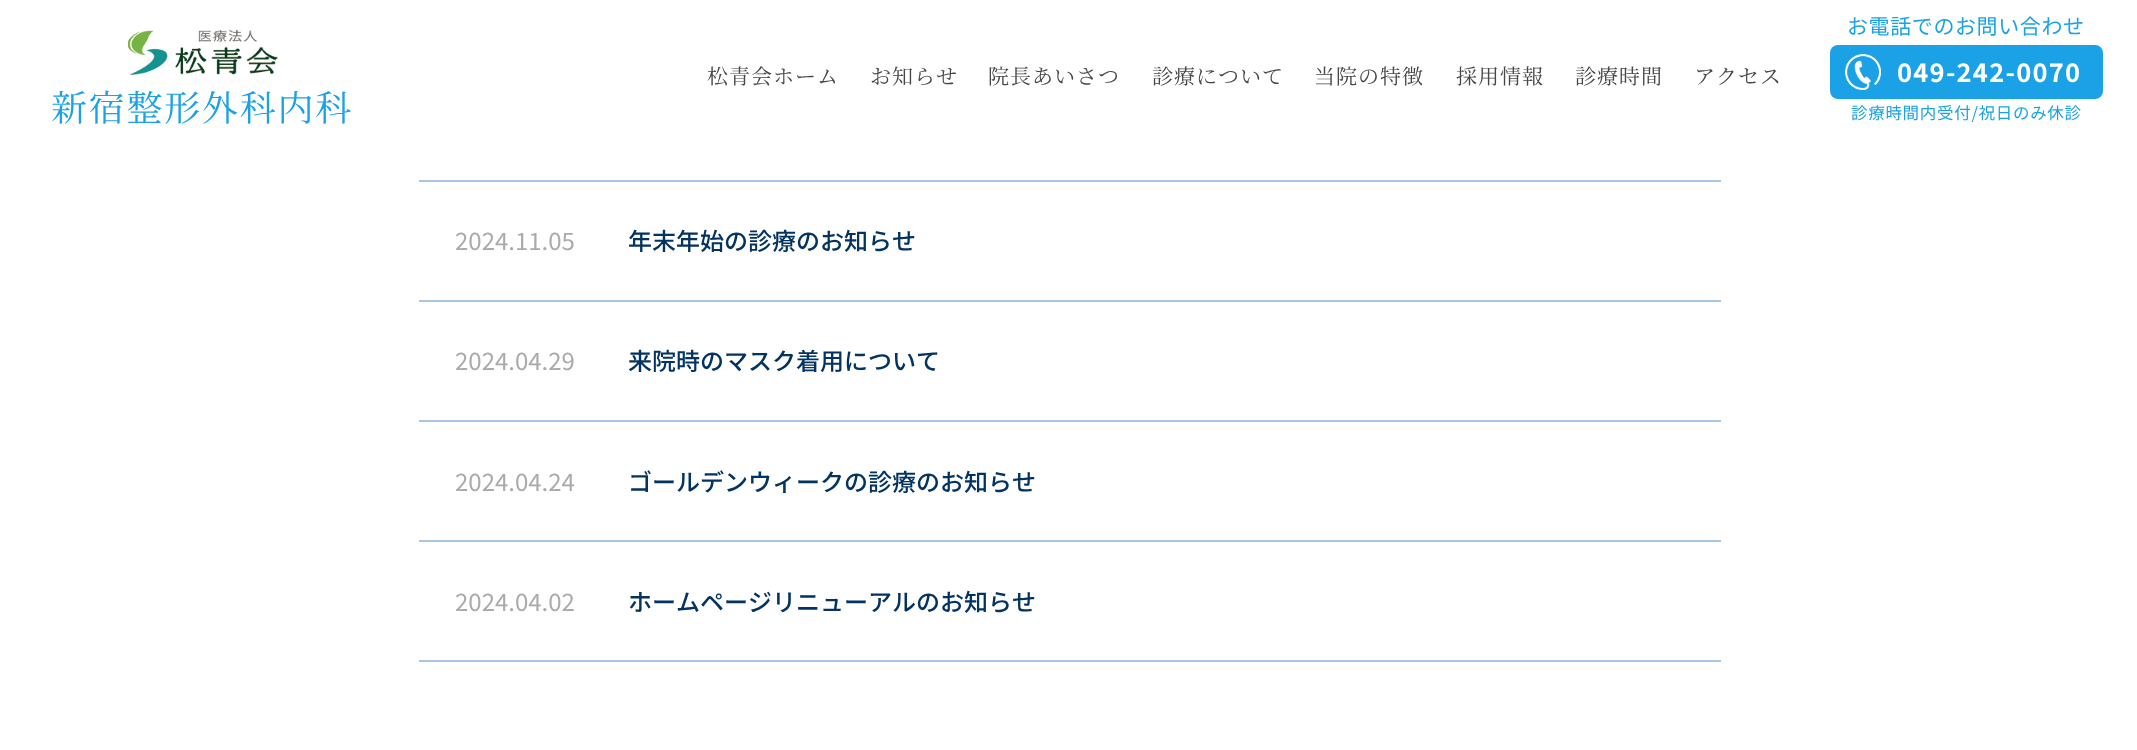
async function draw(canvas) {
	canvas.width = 2137;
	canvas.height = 750;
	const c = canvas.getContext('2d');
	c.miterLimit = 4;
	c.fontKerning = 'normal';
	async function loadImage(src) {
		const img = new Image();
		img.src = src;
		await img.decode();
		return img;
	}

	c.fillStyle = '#fff';
	c.fillRect(0, 0, 2137, 750);
	c.drawImage(await loadImage('img1.png'), 128, 30, 150, 45);
	c.letterSpacing = '1.75px';
	c.font = '200 36px Noto Serif JP';
	c.fillStyle = '#1ba2e6';
	c.fillText('新宿整形外科内科', 51, 121);
	c.letterSpacing = '1px';
	c.font = '200 21px Noto Serif JP';
	c.fillStyle = '#464646';
	for (const [text, x, y] of [
		['松青会ホーム', 707, 84],
		['お知らせ', 870, 84],
		['院長あいさつ', 988, 84],
		['診療について', 1152, 84],
		['当院の特徴', 1314, 84],
		['採用情報', 1456, 84],
		['診療時間', 1575, 84],
		['アクセス', 1694, 84],
	]) {
		c.fillText(text, x, y);
	}
	c.letterSpacing = '0.6px';
	c.font = '21px Noto Sans JP';
	c.fillStyle = '#1ba2e6';
	c.fillText('お電話でのお問い合わせ', 1847, 34);
	c.beginPath();
	c.roundRect(1830, 45, 273, 54, 8);
	c.fill();
	c.drawImage(await loadImage('img2.png'), 1845, 54, 36, 36);
	c.letterSpacing = '1.25px';
	c.font = 'bold 25.5px Noto Sans JP';
	c.fillStyle = '#fff';
	c.fillText('049-242-0070', 1897, 82);
	c.letterSpacing = '0.7px';
	c.font = '16.5px Noto Sans JP';
	c.fillStyle = '#1ba2e6';
	c.fillText('診療時間内受付/祝日のみ休診', 1851, 119);
	c.fillStyle = '#a5c6e6';
	c.fillRect(419, 180, 1302, 2);
	c.fillRect(419, 300, 1302, 2);
	c.letterSpacing = '0px';
	c.font = '24px Noto Sans JP';
	c.fillStyle = '#aaa';
	c.fillText('2024.11.05', 455, 250);
	c.font = '500 24px Noto Sans JP';
	c.fillStyle = '#033360';
	c.fillText('年末年始の診療のお知らせ', 628, 250);
	c.fillStyle = '#a5c6e6';
	c.fillRect(419, 420, 1302, 2);
	c.font = '24px Noto Sans JP';
	c.fillStyle = '#aaa';
	c.fillText('2024.04.29', 455, 370);
	c.font = '500 24px Noto Sans JP';
	c.fillStyle = '#033360';
	c.fillText('来院時のマスク着用について', 628, 370);
	c.fillStyle = '#a5c6e6';
	c.fillRect(419, 540, 1302, 2);
	c.font = '24px Noto Sans JP';
	c.fillStyle = '#aaa';
	c.fillText('2024.04.24', 455, 491);
	c.font = '500 24px Noto Sans JP';
	c.fillStyle = '#033360';
	c.fillText('ゴールデンウィークの診療のお知らせ', 628, 491);
	c.fillStyle = '#a5c6e6';
	c.fillRect(419, 660, 1302, 2);
	c.font = '24px Noto Sans JP';
	c.fillStyle = '#aaa';
	c.fillText('2024.04.02', 455, 611);
	c.font = '500 24px Noto Sans JP';
	c.fillStyle = '#033360';
	c.fillText('ホームページリニューアルのお知らせ', 628, 611);
}

draw(document.querySelector('canvas'));
